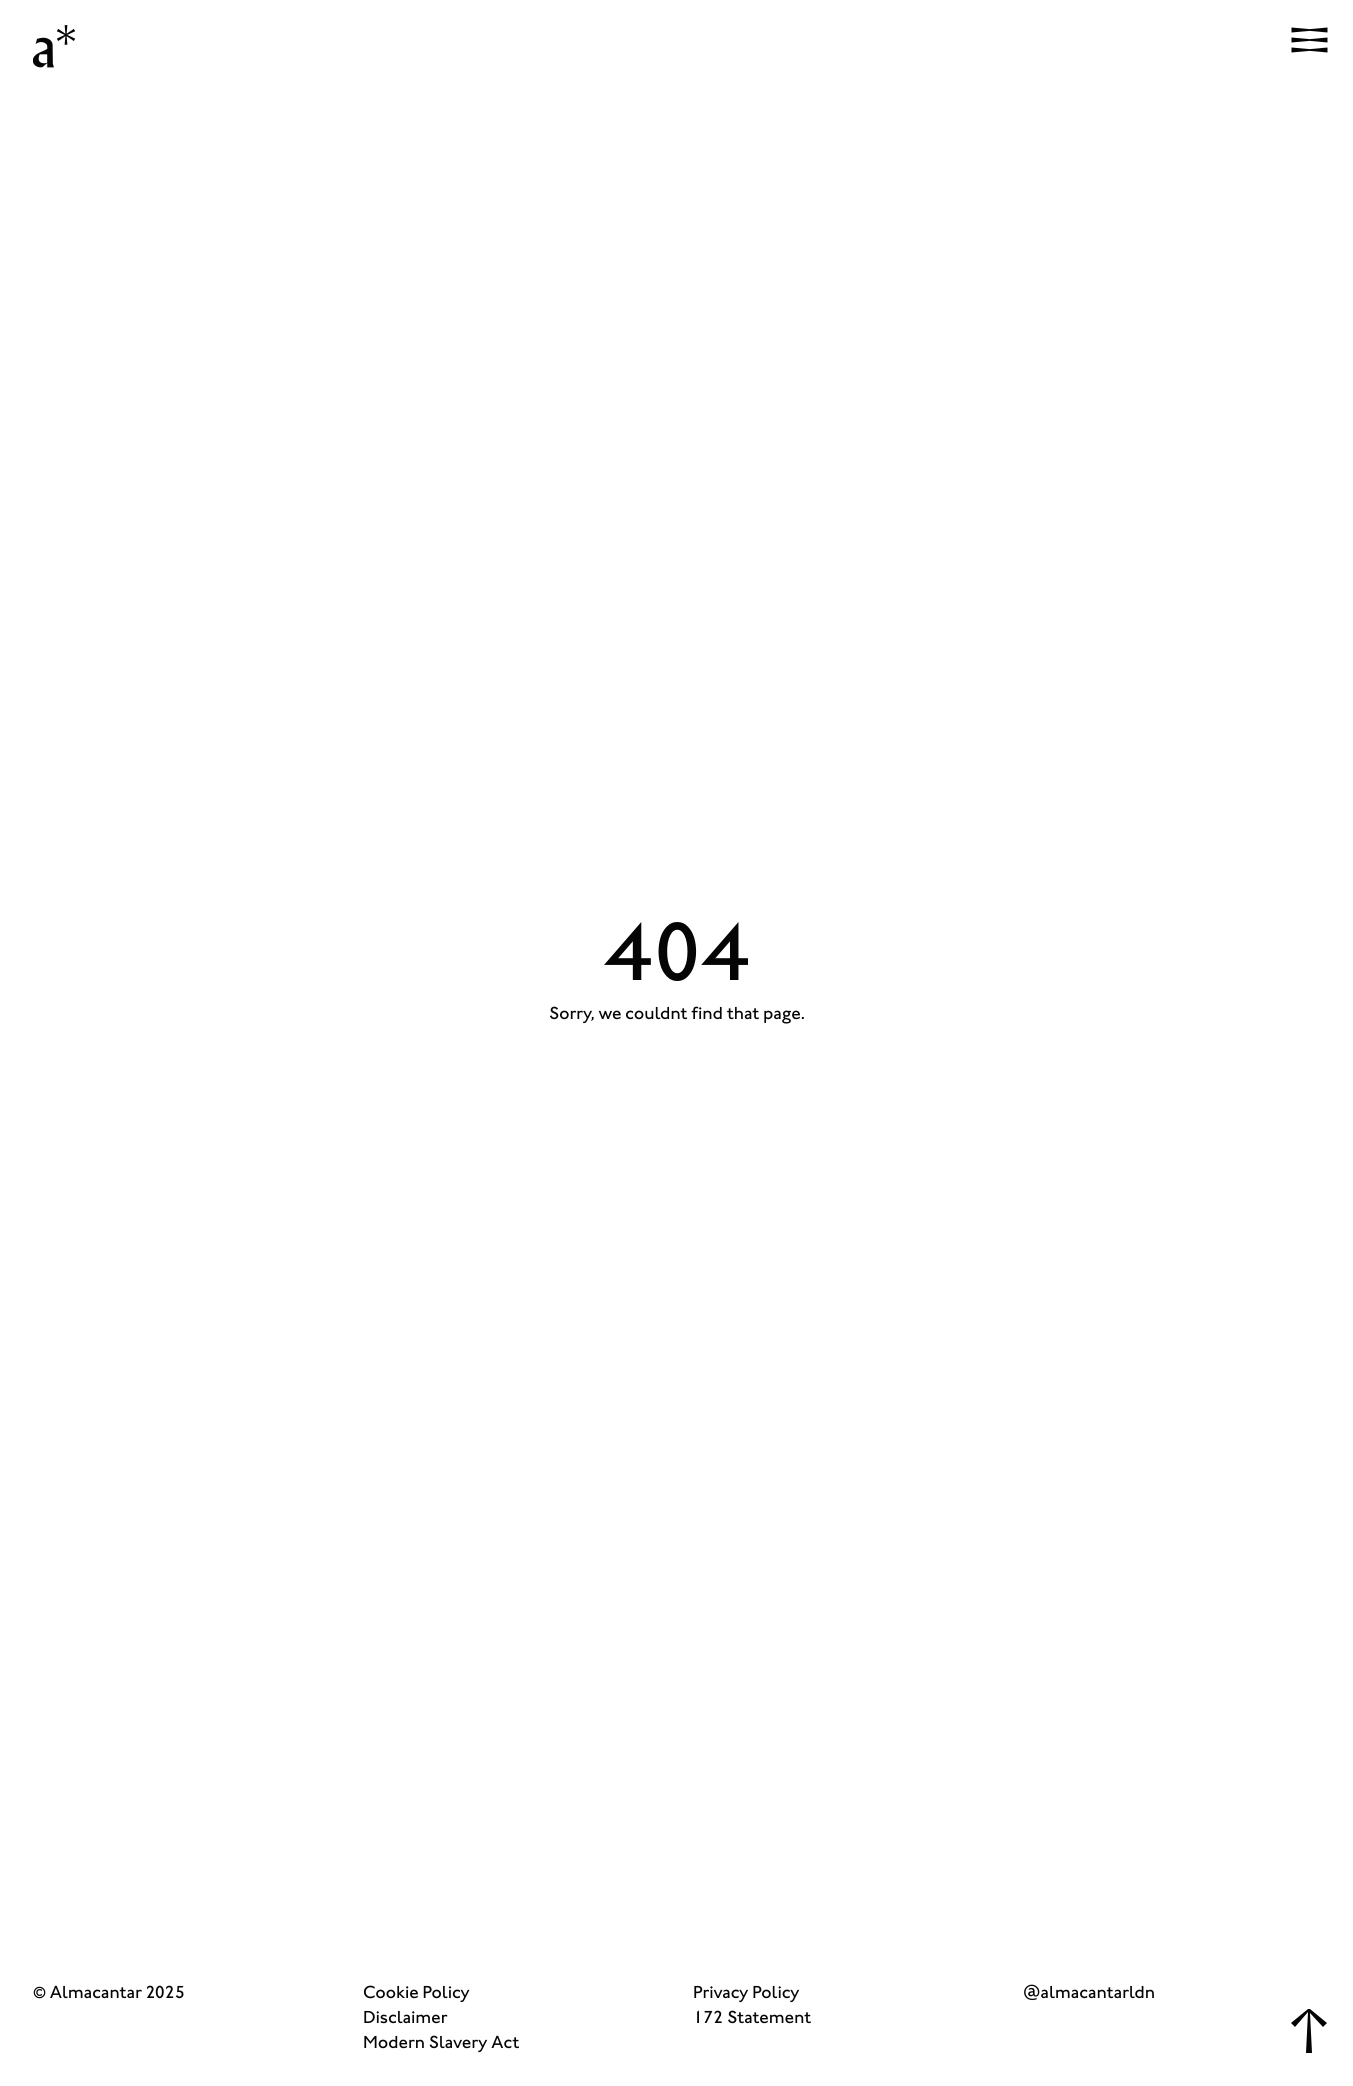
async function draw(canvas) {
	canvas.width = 1353;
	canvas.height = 2086;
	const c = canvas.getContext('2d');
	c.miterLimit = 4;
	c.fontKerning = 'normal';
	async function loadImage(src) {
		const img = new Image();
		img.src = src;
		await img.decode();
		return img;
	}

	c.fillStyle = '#fff';
	c.fillRect(0, 0, 1353, 2086);
	c.drawImage(await loadImage('img1.png'), 33, 25, 43, 43);
	c.drawImage(await loadImage('img2.png'), 1291, 27, 37, 26);
	c.drawImage(await loadImage('img3.png'), 604, 922, 144, 59);
	c.drawImage(await loadImage('img4.png'), 549, 1006, 255, 18);
	c.drawImage(await loadImage('img5.png'), 33, 1985, 151, 14);
	c.drawImage(await loadImage('img6.png'), 363, 1985, 107, 18);
	c.drawImage(await loadImage('img7.png'), 694, 1985, 106, 18);
	c.drawImage(await loadImage('img8.png'), 364, 2010, 84, 14);
	c.drawImage(await loadImage('img9.png'), 697, 2010, 114, 14);
	c.drawImage(await loadImage('img10.png'), 364, 2035, 155, 18);
	c.drawImage(await loadImage('img11.png'), 1024, 1984, 130, 17);
	c.fillStyle = '#050505';
	c.beginPath();
	c.moveTo(1327, 2023);
	c.lineTo(1310, 2009);
	c.lineTo(1308, 2009);
	c.lineTo(1291, 2023);
	c.lineTo(1295, 2027);
	c.lineTo(1308, 2012);
	c.lineTo(1306, 2053);
	c.lineTo(1312, 2053);
	c.lineTo(1310, 2013);
	c.lineTo(1323, 2027);
	c.closePath();
	c.fill();
}

draw(document.querySelector('canvas'));
